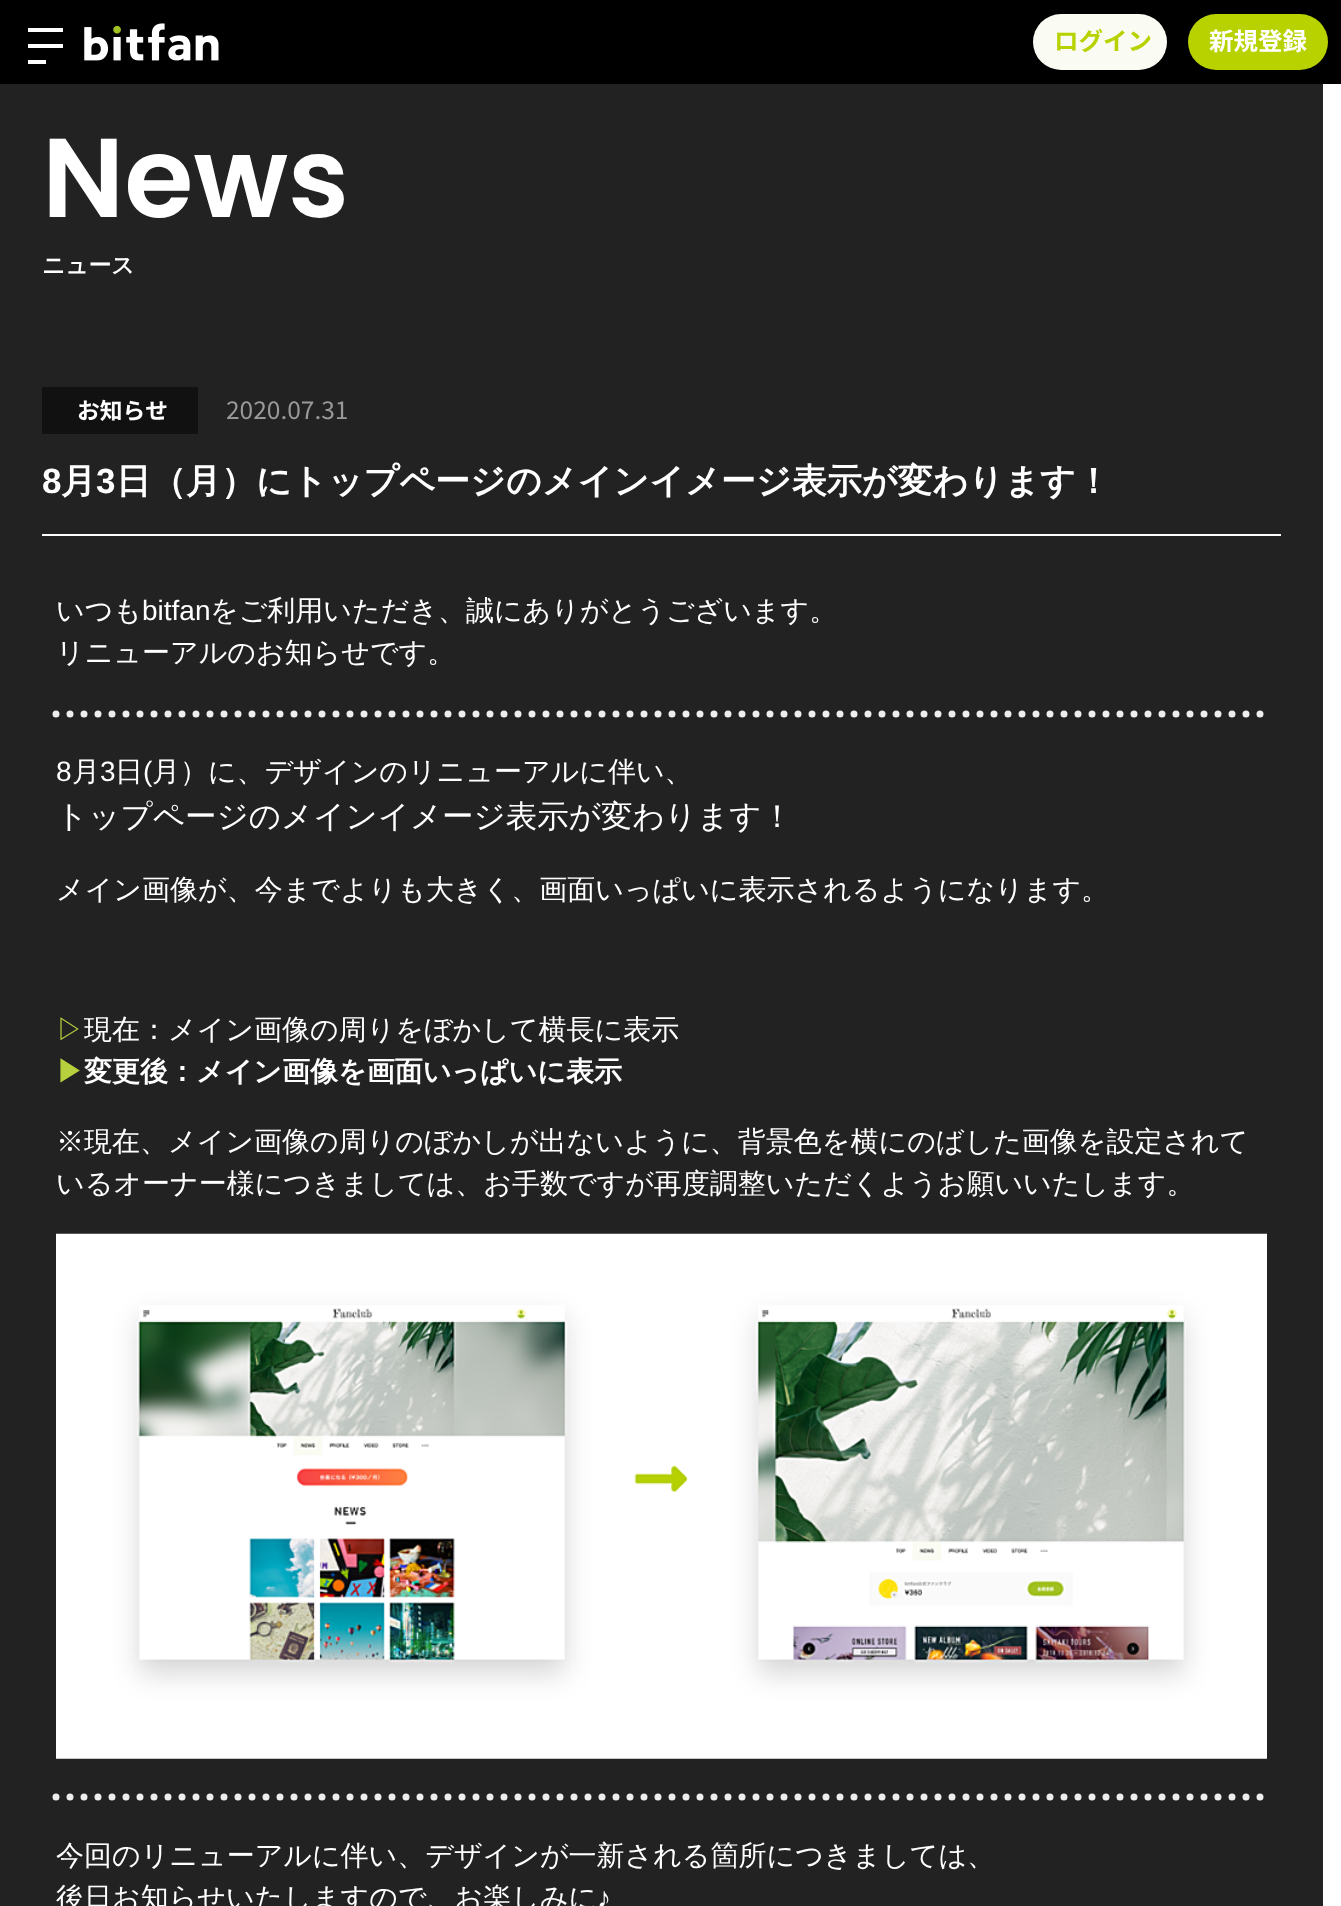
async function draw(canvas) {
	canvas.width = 1341;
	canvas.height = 1906;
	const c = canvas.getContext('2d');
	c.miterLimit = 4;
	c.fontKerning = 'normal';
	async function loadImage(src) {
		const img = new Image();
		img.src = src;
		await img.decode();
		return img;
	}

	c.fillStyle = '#fff';
	c.fillRect(0, 0, 1341, 1906);
	for (const [x, y, w, h, color] of [
		[0, 0, 1341, 84, '#000'],
		[28, 28, 35, 4, '#fff'],
		[28, 44, 35, 4, '#fff'],
		[28, 60, 18, 4, '#fff'],
	]) {
		c.fillStyle = color;
		c.fillRect(x, y, w, h);
	}
	c.drawImage(await loadImage('img1.png'), 84, 23, 135, 38);
	c.fillStyle = '#fafcf3';
	c.beginPath();
	c.roundRect(1033, 14, 134, 56, 28);
	c.fill();
	c.font = 'bold 24.5px Noto Sans JP';
	c.fillStyle = '#b8d200';
	c.fillText('ログイン', 1054, 50);
	c.beginPath();
	c.roundRect(1188, 14, 140, 56, 28);
	c.fill();
	c.fillStyle = '#fff';
	c.fillText('新規登録', 1209, 50);
	c.fillStyle = '#222';
	c.fillRect(0, 84, 1323, 1822);
	c.font = '600 112px Poppins';
	c.fillStyle = '#fff';
	c.fillText('News', 42, 217);
	c.font = 'bold 22.75px WenQuanYi Zen Hei';
	c.fillText('ニュース', 42, 273);
	c.fillStyle = '#111';
	c.fillRect(42, 387, 156, 47);
	c.font = 'bold 22.75px Noto Sans JP';
	c.fillStyle = '#fff';
	c.fillText('お知らせ', 77, 419);
	c.font = '24.5px Noto Sans JP';
	c.fillStyle = '#999';
	c.fillText('2020.07.31', 226, 419);
	c.fillStyle = '#fff';
	c.fillRect(42, 534, 1239, 2);
	c.font = 'bold 35px Liberation Sans';
	c.fillText('8', 42, 493);
	c.font = 'bold 35px WenQuanYi Zen Hei';
	c.fillText('月', 61, 493);
	c.font = 'bold 35px Liberation Sans';
	c.fillText('3', 96, 493);
	c.font = 'bold 35px WenQuanYi Zen Hei';
	c.fillText('日（月）にトップページのメインイメージ表示が変わります！', 116, 493);
	c.font = '500 28px WenQuanYi Zen Hei';
	c.fillText('いつも', 56, 620);
	c.font = '28px Liberation Sans';
	c.fillText('bitfan', 142, 620);
	c.font = '500 28px WenQuanYi Zen Hei';
	c.fillText('をご利用いただき、誠にありがとうございます。', 210, 620);
	c.fillText('リニューアルのお知らせです。', 56, 662);
	c.beginPath();
	c.moveTo(56, 714);
	c.lineTo(1267, 714);
	c.strokeStyle = '#eee';
	c.lineWidth = 7;
	c.lineCap = 'round';
	c.setLineDash([0, 14]);
	c.stroke();
	c.font = '28px Liberation Sans';
	c.fillText('8', 56, 781);
	c.font = '500 28px WenQuanYi Zen Hei';
	c.fillText('月', 72, 781);
	c.font = '28px Liberation Sans';
	c.fillText('3', 100, 781);
	c.font = '500 28px WenQuanYi Zen Hei';
	c.fillText('日', 115, 781);
	c.font = '28px Liberation Sans';
	c.fillText('(', 143, 781);
	c.font = '500 28px WenQuanYi Zen Hei';
	c.fillText('月）に、デザインのリニューアルに伴い、', 152, 781);
	c.font = '500 31.5px WenQuanYi Zen Hei';
	c.fillText('トップページのメインイメージ表示が変わります！', 56, 827);
	c.font = '500 28px WenQuanYi Zen Hei';
	c.fillText('メイン画像が、今までよりも大きく、画面いっぱいに表示されるようになります。', 56, 899);
	c.fillStyle = '#b7d13e';
	c.fillText('▷', 56, 1039);
	c.fillStyle = '#fff';
	c.fillText('現在：メイン画像の周りをぼかして横長に表示', 84, 1039);
	c.font = 'bold 28px WenQuanYi Zen Hei';
	c.fillStyle = '#b7d13e';
	c.fillText('▶︎', 56, 1081);
	c.fillStyle = '#fff';
	c.fillText('変更後：メイン画像を画面いっぱいに表示', 84, 1081);
	c.font = '500 28px WenQuanYi Zen Hei';
	c.fillText('※現在、メイン画像の周りのぼかしが出ないように、背景色を横にのばした画像を設定されて', 56, 1151);
	c.fillText('いるオーナー様につきましては、お手数ですが再度調整いただくようお願いいたします。', 56, 1193);
	c.drawImage(await loadImage('img2.png'), 56, 1233, 1211, 526);
	c.beginPath();
	c.moveTo(56, 1797);
	c.lineTo(1267, 1797);
	c.stroke();
	c.fillText('今回のリニューアルに伴い、デザインが一新される箇所につきましては、', 56, 1865);
	c.fillText('後日お知らせいたしますので、お楽しみに', 56, 1907);
	c.font = '28px Liberation Sans';
	c.fillText('♪', 597, 1907);
}

draw(document.querySelector('canvas'));
